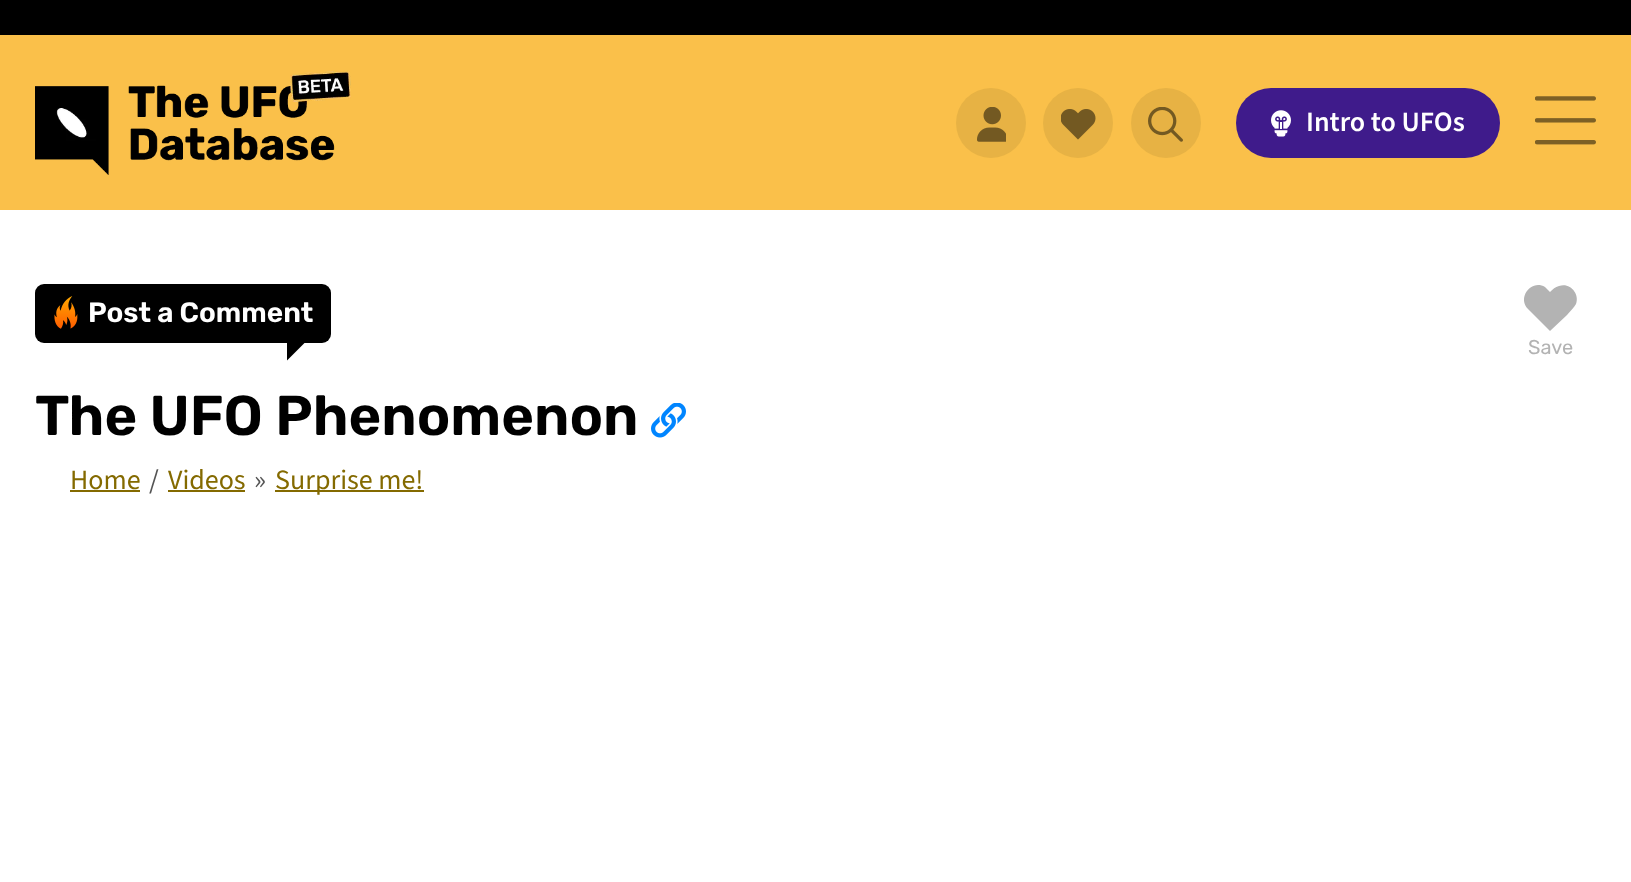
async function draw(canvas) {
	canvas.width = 1631;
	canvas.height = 882;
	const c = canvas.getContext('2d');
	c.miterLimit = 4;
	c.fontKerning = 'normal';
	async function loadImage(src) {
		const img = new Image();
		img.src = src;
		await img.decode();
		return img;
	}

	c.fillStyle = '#fac04a';
	c.fillRect(0, 0, 1631, 882);
	c.fillStyle = '#000';
	c.fillRect(0, 0, 1631, 35);
	c.drawImage(await loadImage('img1.png'), 35, 70, 316, 105);
	c.fillStyle = '#e7b244';
	c.beginPath();
	c.arc(991, 123, 35, 0, 2 * Math.PI);
	c.fill();
	c.drawImage(await loadImage('img2.png'), 977, 107, 29, 35);
	c.beginPath();
	c.arc(1078, 123, 35, 0, 2 * Math.PI);
	c.fill();
	c.drawImage(await loadImage('img3.png'), 1061, 109, 35, 31);
	c.beginPath();
	c.arc(1166, 123, 35, 0, 2 * Math.PI);
	c.fill();
	c.drawImage(await loadImage('img4.png'), 1148, 107, 35, 35);
	c.fillStyle = '#3f1b8b';
	c.beginPath();
	c.roundRect(1236, 88, 264, 70, 35);
	c.fill();
	c.drawImage(await loadImage('img5.png'), 1271, 110, 20, 27);
	c.font = '600 28px "Source Sans 3"';
	c.fillStyle = '#fff';
	c.fillText('Intro to UFOs', 1306, 131);
	c.drawImage(await loadImage('img6.png'), 1535, 96, 61, 49);
	c.fillRect(0, 210, 1631, 672);
	c.fillStyle = '#000';
	c.beginPath();
	c.roundRect(35, 284, 296, 59, 9);
	c.fill();
	c.drawImage(await loadImage('img7.png'), 54, 296, 24, 33);
	c.font = '600 28px Rubik';
	c.fillStyle = '#fff';
	c.fillText('Post a Comment', 88, 322);
	c.fillStyle = '#000';
	c.beginPath();
	c.moveTo(287, 343);
	c.lineTo(304.5, 343);
	c.lineTo(287, 360.5);
	c.closePath();
	c.fill();
	c.fillStyle = '#b3b3b3';
	c.beginPath();
	c.moveTo(1528, 309);
	c.lineTo(1550, 331);
	c.lineTo(1567, 315);
	c.bezierCurveTo(1570, 311, 1574, 308, 1576, 304);
	c.bezierCurveTo(1580, 294, 1570, 282, 1559, 286);
	c.bezierCurveTo(1555, 287, 1553, 289, 1550, 292);
	c.lineTo(1545, 287);
	c.bezierCurveTo(1531, 279, 1517, 298, 1528, 309);
	c.closePath();
	c.fill();
	c.font = '20px Rubik';
	c.fillText('Save', 1528, 354);
	c.font = '600 56px Rubik';
	c.fillStyle = '#000';
	c.fillText('The UFO Phenomenon', 35, 435);
	c.drawImage(await loadImage('img8.png'), 651, 403, 35, 35);
	c.font = '28px "Source Sans 3"';
	c.fillStyle = '#846a00';
	c.fillText('Home', 70, 489);
	c.fillRect(70, 490, 70, 2);
	c.fillStyle = '#545454';
	c.fillText('/', 149, 489);
	c.fillStyle = '#846a00';
	c.fillText('Videos', 168, 489);
	c.fillRect(168, 490, 77, 2);
	c.fillStyle = '#545454';
	c.fillText('»', 254, 489);
	c.fillStyle = '#846a00';
	c.fillRect(275, 490, 149, 2);
	c.fillText('Surprise me!', 275, 489);
}

draw(document.querySelector('canvas'));
